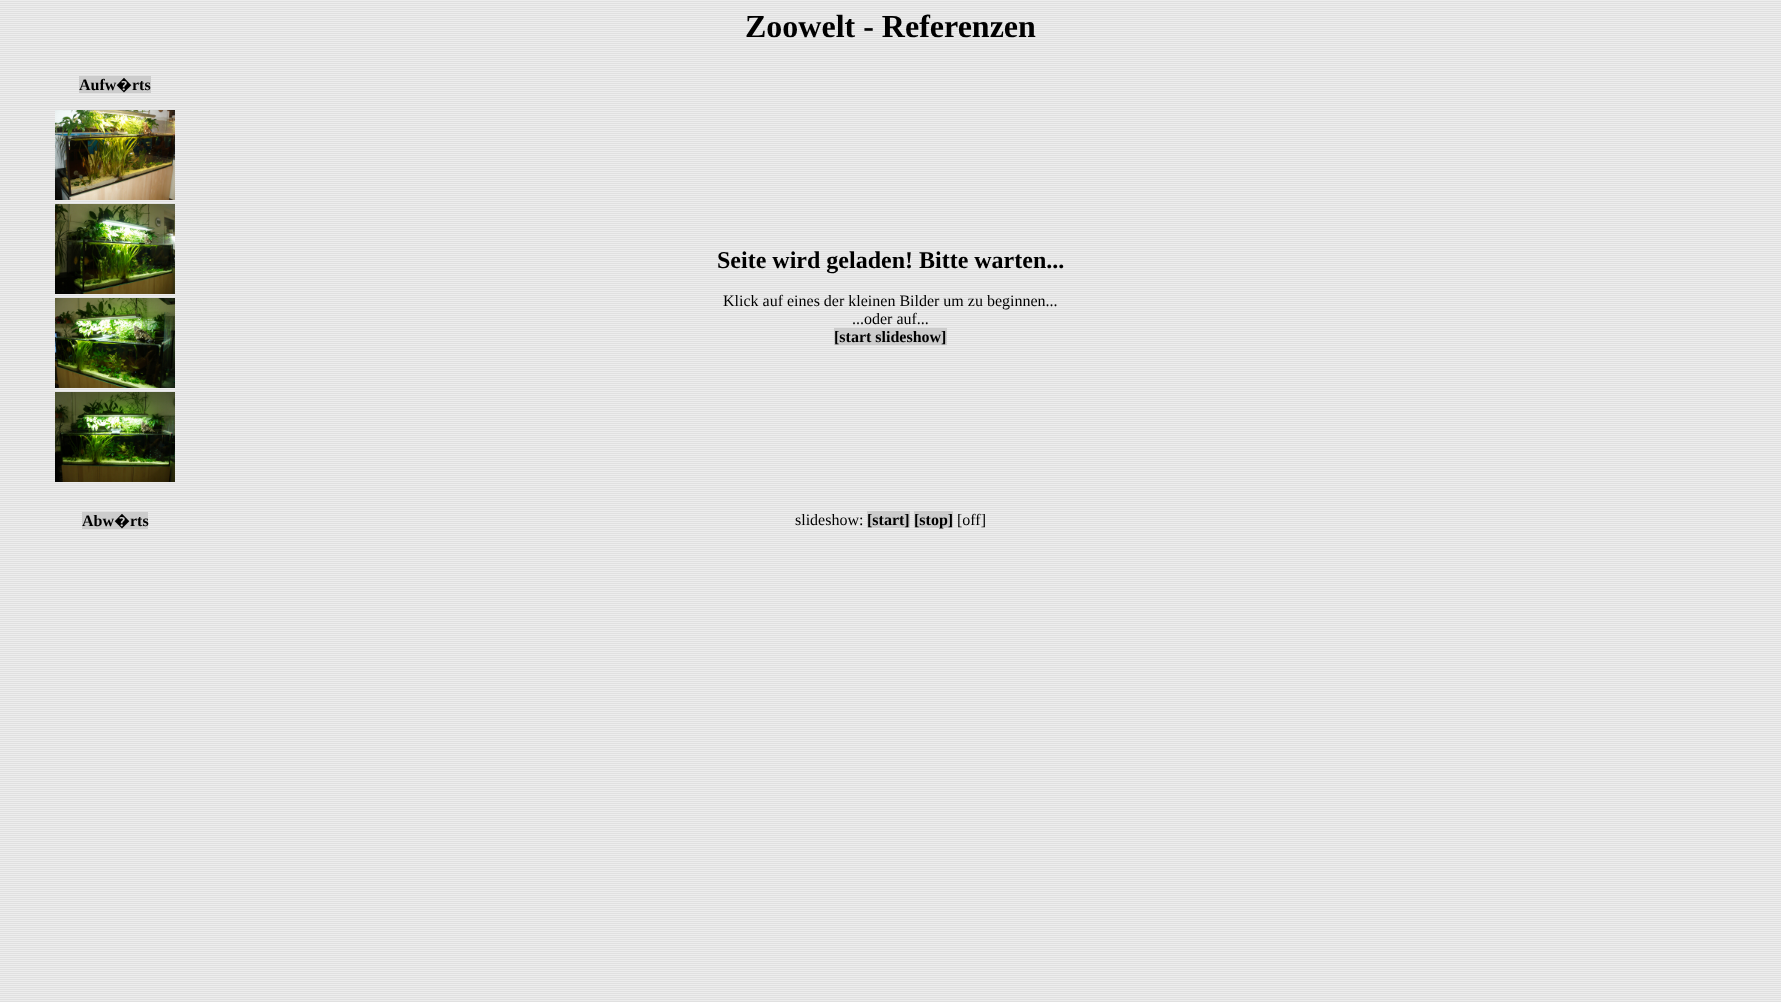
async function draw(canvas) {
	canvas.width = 1781;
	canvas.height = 1002;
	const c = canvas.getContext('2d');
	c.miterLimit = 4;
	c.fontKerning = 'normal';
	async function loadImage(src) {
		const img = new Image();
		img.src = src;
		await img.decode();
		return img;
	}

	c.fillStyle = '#fff';
	c.fillRect(0, 0, 1781, 1002);
	c.drawImage(await loadImage('img1.png'), 0, 0, 1781, 1002);
	c.font = 'bold 32px Liberation Serif';
	c.fillStyle = '#000';
	c.fillText('Zoowelt - Referenzen', 745, 37);
	c.fillStyle = '#ccc';
	c.fillRect(79, 76, 72, 17);
	c.font = 'bold 16px Liberation Serif';
	c.fillStyle = '#000';
	c.fillText('Aufw', 79, 90);
	c.font = 'bold 16px Noto Sans';
	c.fillText('�', 116, 90);
	c.font = 'bold 16px Liberation Serif';
	c.fillText('rts', 132, 90);
	c.drawImage(await loadImage('img2.png'), 55, 110, 120, 90);
	c.drawImage(await loadImage('img3.png'), 55, 204, 120, 90);
	c.drawImage(await loadImage('img4.png'), 55, 298, 120, 90);
	c.drawImage(await loadImage('img5.png'), 55, 392, 120, 90);
	c.font = 'bold 24px Liberation Serif';
	c.fillText('Seite wird geladen! Bitte warten...', 717, 268);
	c.font = '16px Liberation Serif';
	c.fillText('Klick auf eines der kleinen Bilder um zu beginnen...', 723, 306);
	c.fillText('...oder auf...', 852, 324);
	c.fillStyle = '#ccc';
	c.fillRect(834, 328, 113, 17);
	c.font = 'bold 16px Liberation Serif';
	c.fillStyle = '#000';
	c.fillText('[start slideshow]', 834, 342);
	c.fillStyle = '#ccc';
	c.fillRect(82, 512, 66, 17);
	c.fillStyle = '#000';
	c.fillText('Abw', 82, 526);
	c.font = 'bold 16px Noto Sans';
	c.fillText('�', 114, 526);
	c.font = 'bold 16px Liberation Serif';
	c.fillText('rts', 130, 526);
	c.font = '16px Liberation Serif';
	c.fillText('slideshow:', 795, 525);
	c.fillStyle = '#ccc';
	c.fillRect(867, 511, 43, 17);
	c.font = 'bold 16px Liberation Serif';
	c.fillStyle = '#000';
	c.fillText('[start]', 867, 525);
	c.fillStyle = '#ccc';
	c.fillRect(914, 511, 39, 17);
	c.fillStyle = '#000';
	c.fillText('[stop]', 914, 525);
	c.font = '16px Liberation Serif';
	c.fillText('[off]', 957, 525);
}

draw(document.querySelector('canvas'));
